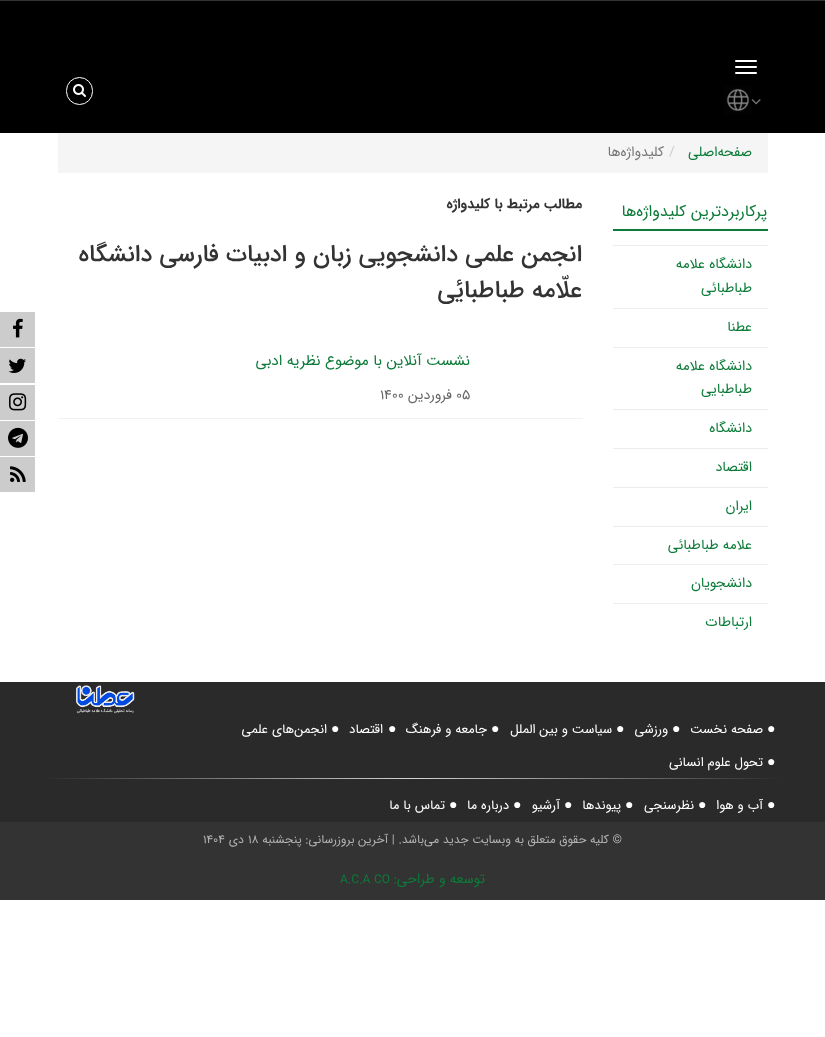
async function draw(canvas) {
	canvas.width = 825;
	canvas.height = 1037;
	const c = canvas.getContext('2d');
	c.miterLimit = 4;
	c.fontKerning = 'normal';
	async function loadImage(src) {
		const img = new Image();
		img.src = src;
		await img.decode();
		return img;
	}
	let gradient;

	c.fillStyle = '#fff';
	c.fillRect(0, 0, 825, 1037);
	c.fillStyle = '#000';
	c.fillRect(0, 1, 825, 132);
	c.fillStyle = '#333';
	c.fillRect(0, 0, 825, 1);
	c.fillStyle = '#fff';
	c.beginPath();
	c.roundRect(735, 60, 22, 2, 1);
	c.fill();
	c.beginPath();
	c.roundRect(735, 66, 22, 2, 1);
	c.fill();
	c.beginPath();
	c.roundRect(735, 72, 22, 2, 1);
	c.fill();
	c.drawImage(await loadImage('img1.png'), 751, 99, 10, 6);
	c.drawImage(await loadImage('img2.png'), 724, 86, 28, 28);
	c.beginPath();
	c.roundRect(66.5, 77.5, 26, 27, 13);
	c.strokeStyle = '#fff';
	c.stroke();
	c.drawImage(await loadImage('img3.png'), 73, 84, 13, 13);
	c.fillStyle = '#ccc';
	c.fillRect(0, 312, 35, 35);
	c.drawImage(await loadImage('img4.png'), 13, 318, 10, 20);
	c.fillRect(0, 348, 35, 35);
	c.drawImage(await loadImage('img5.png'), 8, 358, 18, 15);
	c.fillRect(0, 385, 35, 35);
	c.drawImage(await loadImage('img6.png'), 9, 393, 18, 18);
	c.fillRect(0, 421, 35, 35);
	c.drawImage(await loadImage('img7.png'), 8, 427, 20, 21);
	c.fillRect(0, 457, 35, 35);
	c.drawImage(await loadImage('img8.png'), 10, 466, 16, 16);
	c.fillStyle = '#f5f5f5';
	c.fillRect(58, 133, 710, 40);
	c.direction = 'rtl';
	c.font = '14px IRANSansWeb';
	c.fillStyle = '#0c7b39';
	c.fillText('صفحه‌اصلی', 752, 156);
	c.direction = 'ltr';
	c.fillStyle = '#ccc';
	c.fillText('/', 669, 156);
	c.direction = 'rtl';
	c.fillStyle = '#777';
	c.fillText('کلیدواژه‌ها', 664, 156);
	c.fillStyle = '#0c7b39';
	c.fillRect(613, 229, 155, 2);
	c.font = '16px IRANSansWeb';
	c.fillText('پرکاربردترین کلیدواژه‌ها', 767, 216);
	c.fillStyle = '#ededed';
	c.fillRect(613, 245, 155, 1);
	c.fillRect(613, 308, 155, 1);
	c.font = '14px IRANSansWeb';
	c.fillStyle = '#0c7b39';
	c.fillText('دانشگاه علامه', 752, 268);
	c.fillText('طباطبائی', 752, 292);
	c.fillStyle = '#ededed';
	c.fillRect(613, 347, 155, 1);
	c.fillStyle = '#0c7b39';
	c.fillText('عطنا', 752, 331);
	c.fillStyle = '#ededed';
	c.fillRect(613, 409, 155, 1);
	c.fillStyle = '#0c7b39';
	c.fillText('دانشگاه علامه', 752, 370);
	c.fillText('طباطبایی', 752, 393);
	c.fillStyle = '#ededed';
	c.fillRect(613, 448, 155, 1);
	c.fillStyle = '#0c7b39';
	c.fillText('دانشگاه', 752, 432);
	c.fillStyle = '#ededed';
	c.fillRect(613, 487, 155, 1);
	c.fillStyle = '#0c7b39';
	c.fillText('اقتصاد', 752, 471);
	c.fillStyle = '#ededed';
	c.fillRect(613, 526, 155, 1);
	c.fillStyle = '#0c7b39';
	c.fillText('ایران', 752, 510);
	c.fillStyle = '#ededed';
	c.fillRect(613, 564, 155, 1);
	c.fillStyle = '#0c7b39';
	c.fillText('علامه طباطبائی', 752, 549);
	c.fillStyle = '#ededed';
	c.fillRect(613, 603, 155, 1);
	c.fillStyle = '#0c7b39';
	c.fillText('دانشجویان', 752, 587);
	c.fillText('ارتباطات', 752, 626);
	c.font = 'bold 14px IRANSansWeb';
	c.fillStyle = '#333';
	c.fillText('مطالب مرتبط با کلیدواژه', 582, 208);
	c.font = '500 24px IRANSansWeb';
	c.fillText('انجمن علمی دانشجویی زبان و ادبیات فارسی دانشگاه', 582, 261);
	c.fillText('علّامه طباطبائی', 582, 297);
	c.fillStyle = '#f2f2f2';
	c.fillRect(58, 418, 525, 1);
	c.font = '15px IRANSansWeb';
	c.fillStyle = '#0c7b39';
	c.fillText('نشست آنلاین با موضوع نظریه ادبی', 470, 365);
	c.direction = 'ltr';
	c.font = '14px IRANSansWeb';
	c.fillStyle = '#666';
	c.fillText('۰۵', 456, 399);
	c.direction = 'rtl';
	c.fillText('فروردین', 452, 399);
	c.direction = 'ltr';
	c.fillText('۱۴۰۰', 380, 399);
	c.fillStyle = '#2a2a2a';
	c.fillRect(0, 682, 825, 140);
	c.drawImage(await loadImage('img9.png'), 76, 685, 59, 29);
	c.font = '14px Liberation Serif';
	c.fillStyle = '#fff';
	c.fillText('●', 767, 733);
	c.direction = 'rtl';
	c.font = '13px IRANSansWeb';
	c.fillText('صفحه نخست', 763, 733);
	c.direction = 'ltr';
	c.font = '14px Liberation Serif';
	c.fillText('●', 672, 733);
	c.direction = 'rtl';
	c.font = '13px IRANSansWeb';
	c.fillText('ورزشی', 668, 733);
	c.direction = 'ltr';
	c.font = '14px Liberation Serif';
	c.fillText('●', 616, 733);
	c.direction = 'rtl';
	c.font = '13px IRANSansWeb';
	c.fillText('سیاست و بین الملل', 612, 733);
	c.direction = 'ltr';
	c.font = '14px Liberation Serif';
	c.fillText('●', 491, 733);
	c.direction = 'rtl';
	c.font = '13px IRANSansWeb';
	c.fillText('جامعه و فرهنگ', 487, 733);
	c.direction = 'ltr';
	c.font = '14px Liberation Serif';
	c.fillText('●', 388, 733);
	c.direction = 'rtl';
	c.font = '13px IRANSansWeb';
	c.fillText('اقتصاد', 383, 733);
	c.direction = 'ltr';
	c.font = '14px Liberation Serif';
	c.fillText('●', 331, 733);
	c.direction = 'rtl';
	c.font = '13px IRANSansWeb';
	c.fillText('انجمن‌های علمی', 327, 733);
	c.direction = 'ltr';
	c.font = '14px Liberation Serif';
	c.fillText('●', 767, 766);
	c.direction = 'rtl';
	c.font = '13px IRANSansWeb';
	c.fillText('تحول علوم انسانی', 763, 766);
	gradient = c.createLinearGradient(413, 779, 783, 779);
	gradient.addColorStop(0, '#d4d4d4');
	gradient.addColorStop(1, '#2a2a2a');
	c.fillStyle = gradient;
	c.fillRect(413, 778, 370, 1);
	gradient = c.createLinearGradient(413, 779, 43, 779);
	gradient.addColorStop(0, '#d4d4d4');
	gradient.addColorStop(1, '#2a2a2a');
	c.fillStyle = gradient;
	c.fillRect(43, 778, 370, 1);
	c.direction = 'ltr';
	c.font = '14px Liberation Serif';
	c.fillStyle = '#fff';
	c.fillText('●', 767, 809);
	c.direction = 'rtl';
	c.font = '13px IRANSansWeb';
	c.fillText('آب و هوا', 763, 809);
	c.direction = 'ltr';
	c.font = '14px Liberation Serif';
	c.fillText('●', 698, 809);
	c.direction = 'rtl';
	c.font = '13px IRANSansWeb';
	c.fillText('نظرسنجی', 694, 809);
	c.direction = 'ltr';
	c.font = '14px Liberation Serif';
	c.fillText('●', 625, 809);
	c.direction = 'rtl';
	c.font = '13px IRANSansWeb';
	c.fillText('پیوندها', 621, 809);
	c.direction = 'ltr';
	c.font = '14px Liberation Serif';
	c.fillText('●', 564, 809);
	c.direction = 'rtl';
	c.font = '13px IRANSansWeb';
	c.fillText('آرشیو', 560, 809);
	c.direction = 'ltr';
	c.font = '14px Liberation Serif';
	c.fillText('●', 513, 809);
	c.direction = 'rtl';
	c.font = '13px IRANSansWeb';
	c.fillText('درباره ما', 509, 809);
	c.direction = 'ltr';
	c.font = '14px Liberation Serif';
	c.fillText('●', 449, 809);
	c.direction = 'rtl';
	c.font = '13px IRANSansWeb';
	c.fillText('تماس با ما', 445, 809);
	c.fillStyle = '#333';
	c.fillRect(0, 822, 825, 78);
	c.font = '12px IRANSansWeb';
	c.fillStyle = '#b3b3b3';
	c.fillText('© کلیه حقوق متعلق به وبسایت جدید می‌باشد. | آخرین بروزرسانی: پنجشنبه', 622, 843);
	c.direction = 'ltr';
	c.fillText('۱۸', 248, 843);
	c.direction = 'rtl';
	c.fillText('دی', 244, 843);
	c.direction = 'ltr';
	c.fillText('۱۴۰۴', 203, 843);
	c.direction = 'rtl';
	c.font = '14px IRANSansWeb';
	c.fillStyle = '#0c7b39';
	c.fillText('توسعه و طراحی:', 485, 883);
	c.direction = 'ltr';
	c.font = '12px IRANSansWeb';
	c.fillText('A.C.A CO', 340, 883);
}

draw(document.querySelector('canvas'));
